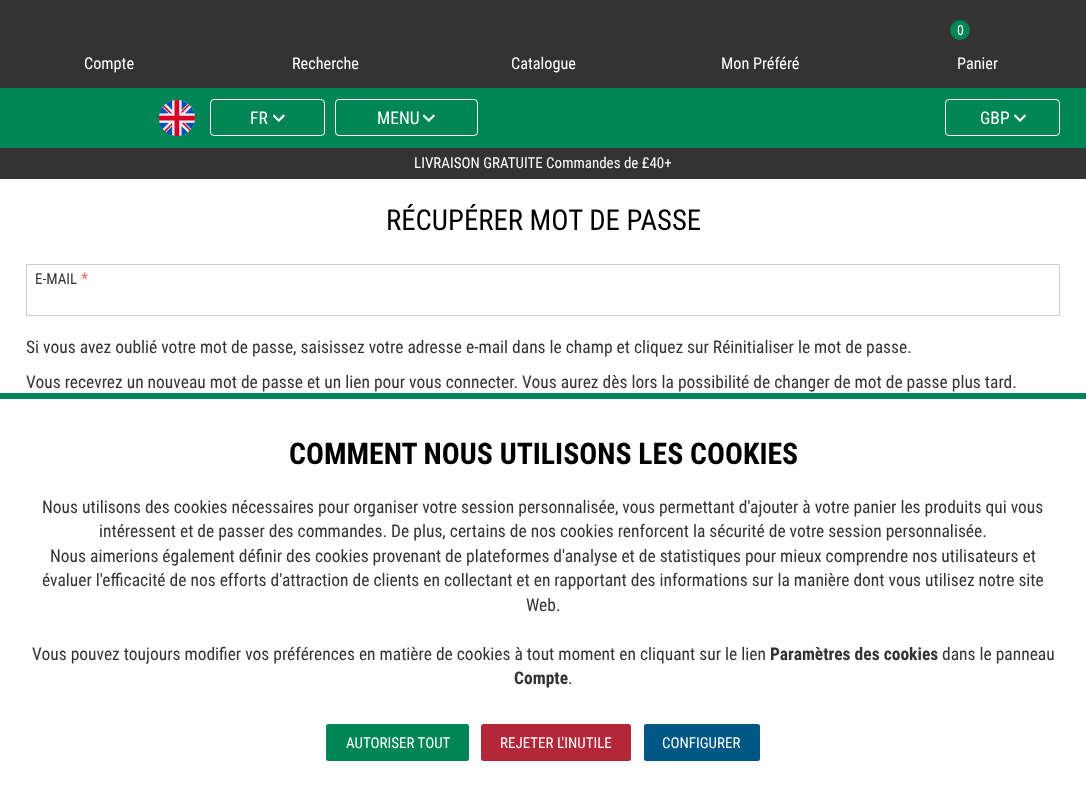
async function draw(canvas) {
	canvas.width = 1086;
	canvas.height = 796;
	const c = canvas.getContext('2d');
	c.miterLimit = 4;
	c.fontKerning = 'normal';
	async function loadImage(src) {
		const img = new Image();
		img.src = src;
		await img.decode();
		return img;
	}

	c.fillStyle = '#fff';
	c.fillRect(0, 0, 1086, 796);
	c.fillStyle = '#333';
	c.fillRect(0, 0, 1086, 88);
	c.font = '16.25px Roboto Condensed';
	c.fillStyle = '#fff';
	for (const [text, x, y] of [
		['Compte', 84, 69],
		['Recherche', 292, 69],
		['Catalogue', 511, 69],
		['Mon Préféré', 721, 69],
	]) {
		c.fillText(text, x, y);
	}
	c.fillStyle = '#008556';
	c.beginPath();
	c.arc(960, 30, 10, 0, 2 * Math.PI);
	c.fill();
	c.font = '14px Roboto Condensed';
	c.fillStyle = '#fff';
	c.fillText('0', 957, 35);
	c.font = '16.25px Roboto Condensed';
	c.fillText('Panier', 957, 69);
	c.fillStyle = '#008556';
	c.fillRect(0, 88, 1086, 60);
	c.drawImage(await loadImage('img1.png'), 159, 100, 36, 36);
	c.beginPath();
	c.roundRect(210.5, 99.5, 114, 36, 3.5);
	c.strokeStyle = '#fff';
	c.stroke();
	c.font = '17.5px Roboto Condensed';
	c.fillStyle = '#fff';
	c.fillText('FR', 250, 124);
	c.drawImage(await loadImage('img2.png'), 273, 114, 12, 8);
	c.beginPath();
	c.roundRect(335.5, 99.5, 142, 36, 3.5);
	c.stroke();
	c.fillText('MENU', 377, 124);
	c.drawImage(await loadImage('img2.png'), 423, 114, 12, 8);
	c.beginPath();
	c.roundRect(945.5, 99.5, 114, 36, 3.5);
	c.stroke();
	c.fillText('GBP', 980, 124);
	c.drawImage(await loadImage('img3.png'), 1014, 114, 12, 8);
	c.fillStyle = '#333';
	c.fillRect(0, 148, 1086, 31);
	c.font = '15px Roboto Condensed';
	c.fillStyle = '#fff';
	c.fillText('LIVRAISON GRATUITE Commandes de £40+', 414, 168);
	c.font = '28.75px Roboto Condensed';
	c.fillStyle = '#000';
	c.fillText('RÉCUPÉRER MOT DE PASSE', 386, 230);
	c.strokeStyle = '#ccc';
	c.strokeRect(26.5, 264.5, 1033, 51);
	c.font = '15px Roboto Condensed';
	c.fillStyle = '#333';
	c.fillText('E-MAIL', 35, 284);
	c.font = '16.25px Roboto Condensed';
	c.fillStyle = '#ea7162';
	c.fillText('*', 81, 284);
	c.font = '17.5px Roboto Condensed';
	c.fillStyle = '#333';
	c.fillText('Si vous avez oublié votre mot de passe, saisissez votre adresse e-mail dans le champ et cliquez sur Réinitialiser le mot de passe.', 26, 353);
	c.fillText('Vous recevrez un nouveau mot de passe et un lien pour vous connecter. Vous aurez dès lors la possibilité de changer de mot de passe plus tard.', 26, 388);
	c.fillStyle = '#008556';
	c.fillRect(0, 393, 1086, 6);
	c.font = 'bold 29.75px Roboto Condensed';
	c.fillStyle = '#000';
	c.fillText('COMMENT NOUS UTILISONS LES COOKIES', 289, 464);
	c.font = '17.5px Roboto Condensed';
	c.fillStyle = '#333';
	for (const [text, x, y] of [
		['Nous utilisons des cookies nécessaires pour organiser votre session personnalisée, vous permettant d\'ajouter à votre panier les produits qui vous', 42, 513],
		['intéressent et de passer des commandes. De plus, certains de nos cookies renforcent la sécurité de votre session personnalisée.', 99, 537],
		['Nous aimerions également définir des cookies provenant de plateformes d\'analyse et de statistiques pour mieux comprendre nos utilisateurs et', 50, 562],
		['évaluer l\'efficacité de nos efforts d\'attraction de clients en collectant et en rapportant des informations sur la manière dont vous utilisez notre site', 42, 586],
		['Web.', 526, 611],
		['Vous pouvez toujours modifier vos préférences en matière de cookies à tout moment en cliquant sur le lien', 32, 660],
	]) {
		c.fillText(text, x, y);
	}
	c.font = 'bold 17.5px Roboto Condensed';
	c.fillText('Paramètres des cookies', 770, 660);
	c.font = '17.5px Roboto Condensed';
	c.fillText('dans le panneau', 942, 660);
	c.font = 'bold 17.5px Roboto Condensed';
	c.fillText('Compte', 514, 684);
	c.font = '17.5px Roboto Condensed';
	c.fillText('.', 568, 684);
	c.fillStyle = '#008556';
	c.beginPath();
	c.roundRect(326, 724, 143, 37, 2.5);
	c.fill();
	c.font = '15px Roboto Condensed';
	c.fillStyle = '#fff';
	c.fillText('AUTORISER TOUT', 346, 748);
	c.fillStyle = '#b42738';
	c.beginPath();
	c.roundRect(481, 724, 150, 37, 2.5);
	c.fill();
	c.fillStyle = '#fff';
	c.fillText('REJETER L\'INUTILE', 500, 748);
	c.fillStyle = '#005685';
	c.beginPath();
	c.roundRect(644, 724, 116, 37, 2.5);
	c.fill();
	c.fillStyle = '#fff';
	c.fillText('CONFIGURER', 662, 748);
}

draw(document.querySelector('canvas'));
